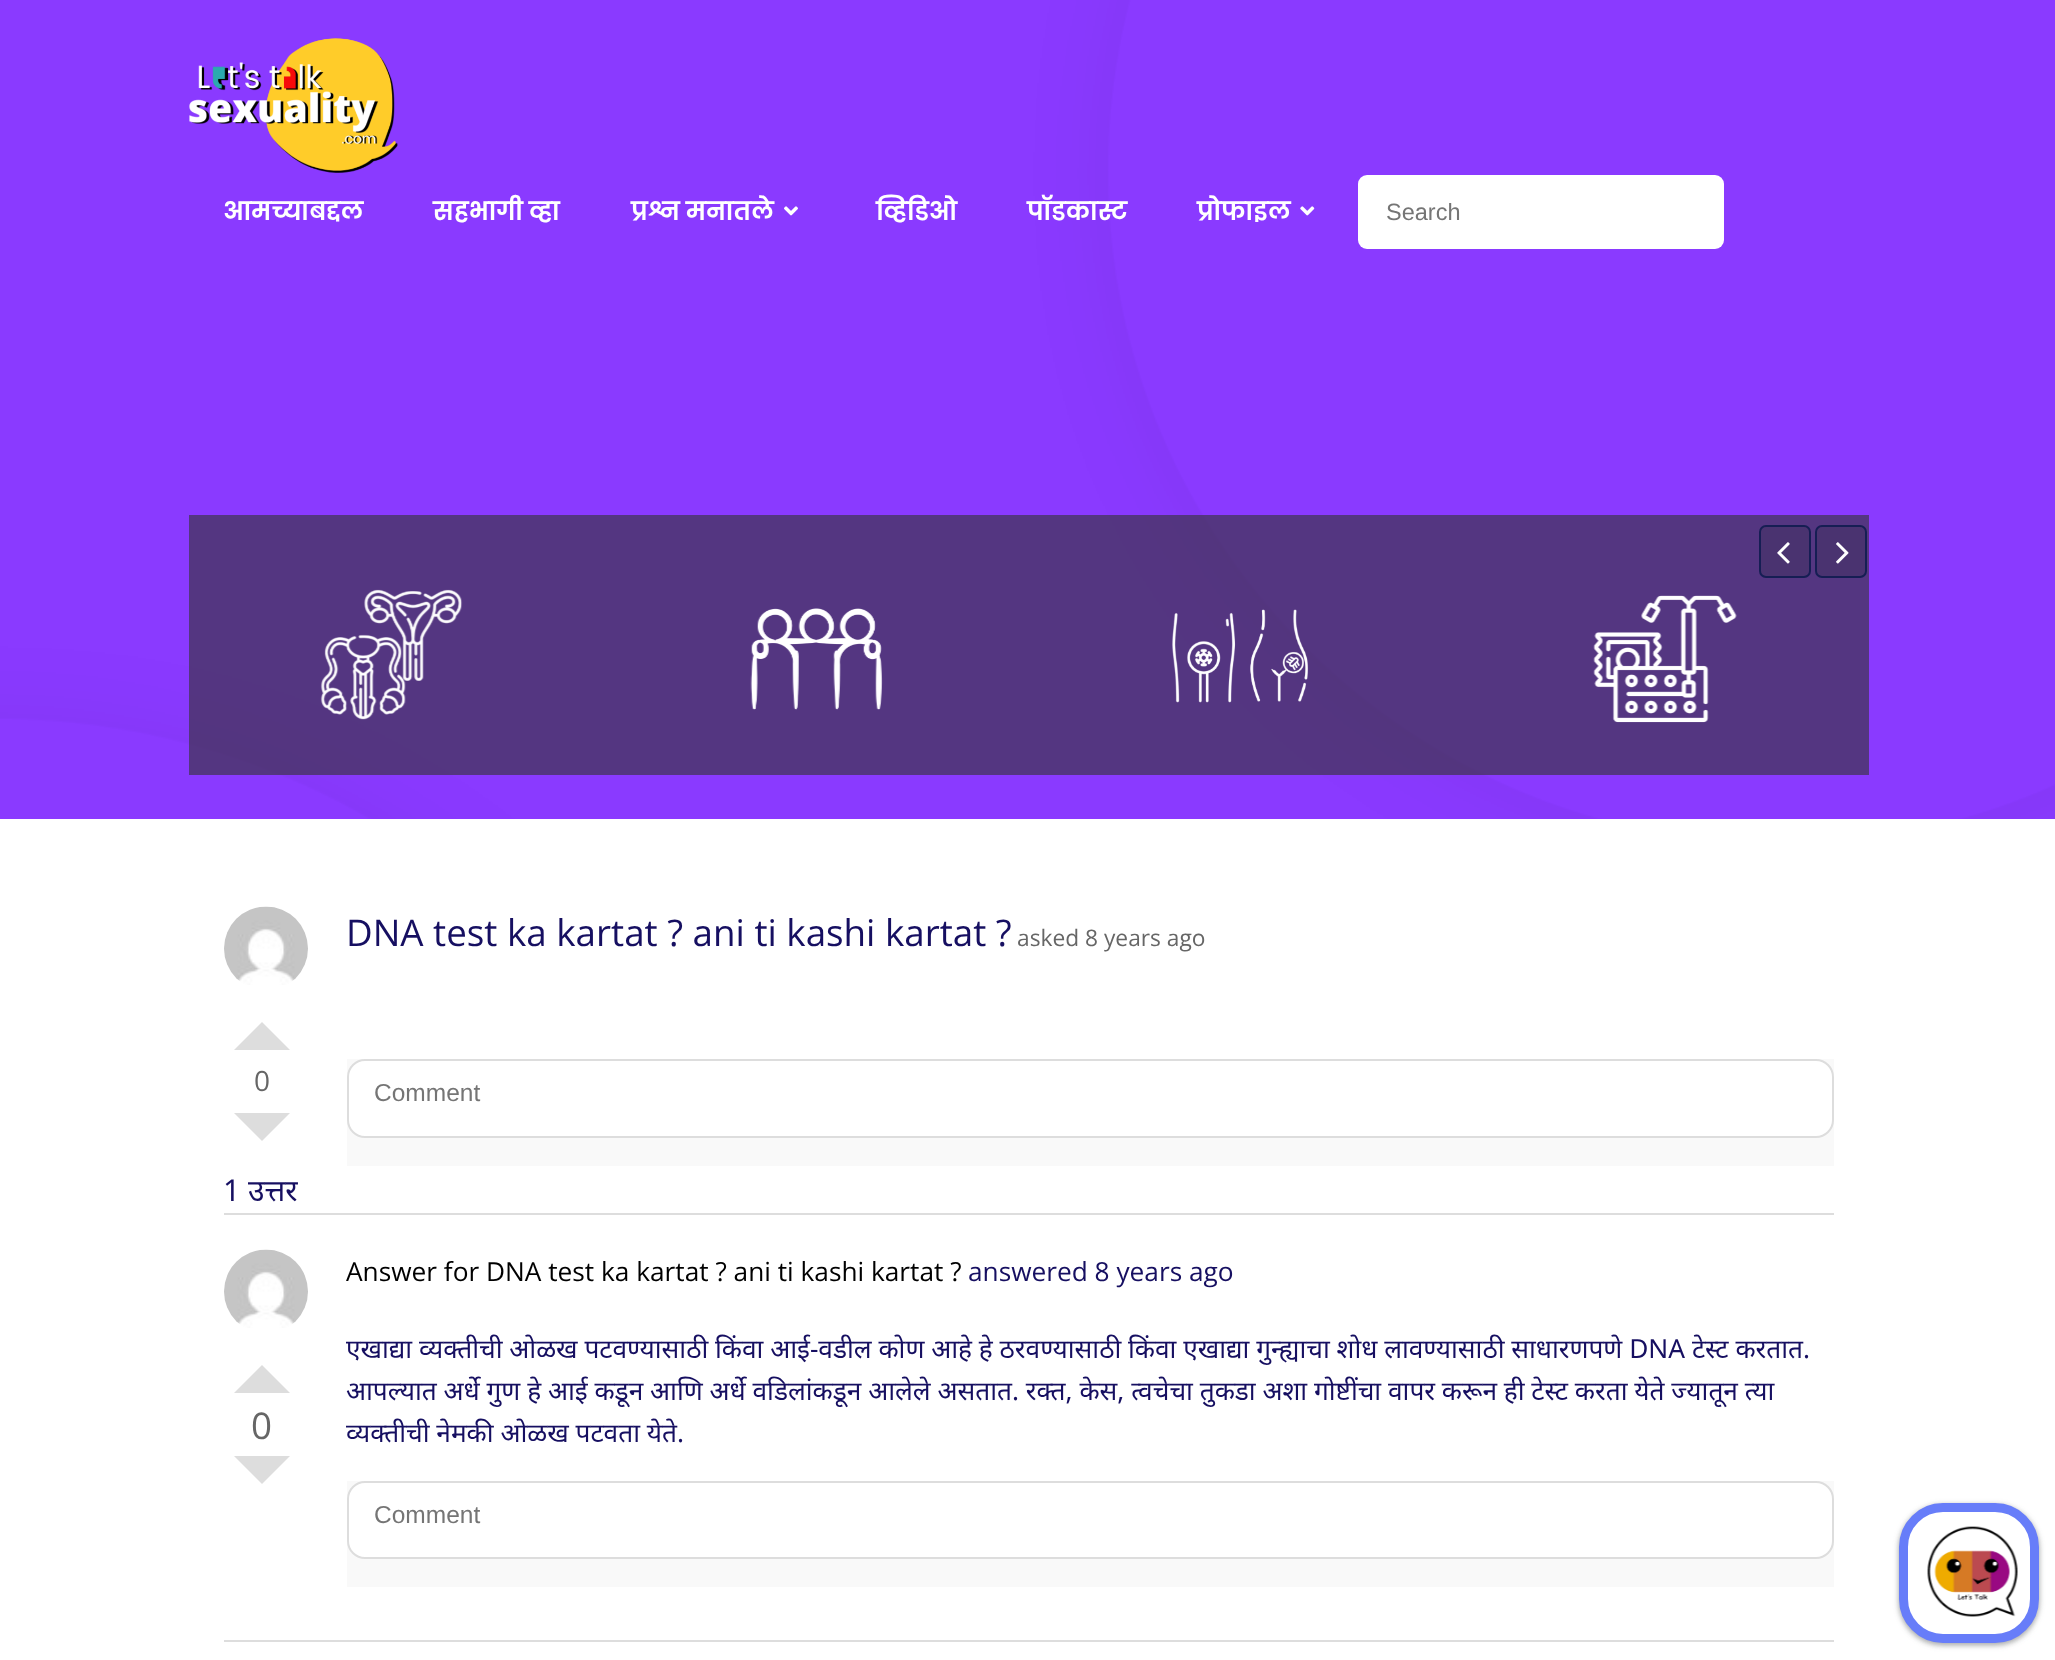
async function draw(canvas) {
	canvas.width = 2055;
	canvas.height = 1660;
	const c = canvas.getContext('2d');
	c.miterLimit = 4;
	c.fontKerning = 'normal';
	async function loadImage(src) {
		const img = new Image();
		img.src = src;
		await img.decode();
		return img;
	}

	c.fillStyle = '#fff';
	c.fillRect(0, 0, 2055, 1660);
	c.fillStyle = '#8a3aff';
	c.fillRect(0, 0, 2055, 819);
	c.drawImage(await loadImage('img1.png'), 0, 0, 2055, 819);
	c.fillStyle = '#3333339e';
	c.fillRect(189, 515, 1680, 260);
	c.fillStyle = '#4a3370';
	c.beginPath();
	c.roundRect(1760, 526, 50, 51, 6);
	c.fill();
	c.strokeStyle = '#161e54';
	c.lineWidth = 2;
	c.stroke();
	c.drawImage(await loadImage('img2.png'), 1777, 542, 13, 22);
	c.beginPath();
	c.roundRect(1816, 526, 50, 51, 6);
	c.fill();
	c.stroke();
	c.drawImage(await loadImage('img3.png'), 1836, 542, 13, 22);
	c.drawImage(await loadImage('img4.png'), 320, 589, 143, 131);
	c.drawImage(await loadImage('img5.png'), 750, 608, 133, 102);
	c.drawImage(await loadImage('img6.png'), 1172, 609, 137, 94);
	c.drawImage(await loadImage('img7.png'), 1593, 595, 144, 128);
	c.drawImage(await loadImage('img8.png'), 189, 38, 209, 135);
	c.letterSpacing = '0.5px';
	c.font = 'bold 24.5px Poppins';
	c.fillStyle = '#fff';
	c.fillText('आमच्याबद्दल', 223, 220);
	c.wordSpacing = '-1px';
	c.fillText('सहभागी व्हा', 433, 220);
	c.fillText('प्रश्न मनातले', 631, 220);
	c.drawImage(await loadImage('img9.png'), 784, 206, 14, 10);
	c.wordSpacing = '0px';
	for (const [text, x, y] of [
		['व्हिडिओ', 876, 220],
		['पॉडकास्ट', 1027, 220],
		['प्रोफाइल', 1197, 220],
	]) {
		c.fillText(text, x, y);
	}
	c.drawImage(await loadImage('img10.png'), 1300, 206, 15, 10);
	c.beginPath();
	c.roundRect(1358, 175, 366, 74, 9);
	c.fill();
	c.letterSpacing = '0px';
	c.font = '23.5px Liberation Sans';
	c.fillStyle = '#757575';
	c.fillText('Search', 1386, 220);
	c.drawImage(await loadImage('img11.png'), 224, 906, 84, 79);
	c.font = '36.75px Open Sans';
	c.fillStyle = '#160f61';
	c.fillText('DNA test ka kartat ? ani ti kashi kartat ?', 346, 946);
	c.font = '22.75px Open Sans';
	c.fillStyle = '#666';
	c.fillText('asked 8 years ago', 1017, 946);
	c.fillStyle = '#ddd';
	c.beginPath();
	c.moveTo(290, 1050);
	c.lineTo(234, 1050);
	c.lineTo(262, 1022);
	c.closePath();
	c.fill();
	c.font = '28px Open Sans';
	c.fillStyle = '#666';
	c.fillText('0', 254, 1091);
	c.fillStyle = '#ddd';
	c.beginPath();
	c.moveTo(234, 1113);
	c.lineTo(290, 1113);
	c.lineTo(262, 1141);
	c.closePath();
	c.fill();
	c.fillStyle = '#f9f9f9';
	c.fillRect(347, 1059, 1487, 107);
	c.fillStyle = '#fff';
	c.beginPath();
	c.roundRect(348, 1060, 1485, 77, 17);
	c.fill();
	c.strokeStyle = '#ddd';
	c.stroke();
	c.font = '24.5px Liberation Sans';
	c.fillStyle = '#757575';
	c.fillText('Comment', 374, 1101);
	c.font = '30px Noto Sans';
	c.fillStyle = '#160f61';
	c.fillText('1 उत्तर', 223, 1201);
	c.fillStyle = '#ddd';
	c.fillRect(224, 1213, 1610, 2);
	c.drawImage(await loadImage('img12.png'), 224, 1249, 84, 79);
	c.font = '26.25px Open Sans';
	c.fillStyle = '#000';
	c.fillText('Answer for DNA test ka kartat ? ani ti kashi kartat ?', 346, 1281);
	c.fillStyle = '#160f61';
	c.fillText('answered 8 years ago', 968, 1281);
	c.fillStyle = '#ddd';
	c.beginPath();
	c.moveTo(290, 1393);
	c.lineTo(234, 1393);
	c.lineTo(262, 1365);
	c.closePath();
	c.fill();
	c.font = '36.75px Open Sans';
	c.fillStyle = '#666';
	c.fillText('0', 251, 1439);
	c.fillStyle = '#ddd';
	c.beginPath();
	c.moveTo(234, 1456);
	c.lineTo(290, 1456);
	c.lineTo(262, 1484);
	c.closePath();
	c.fill();
	c.font = '26.25px Noto Sans';
	c.fillStyle = '#160f61';
	for (const [text, x, y] of [
		['एखाद्या व्यक्तीची ओळख पटवण्यासाठी किंवा आई-वडील कोण आहे हे ठरवण्यासाठी किंवा एखाद्या गुन्ह्याचा शोध लावण्यासाठी साधारणपणे DNA टेस्ट करतात.', 346, 1358],
		['आपल्यात अर्धे गुण हे आई कडून आणि अर्धे वडिलांकडून आलेले असतात. रक्त, केस, त्वचेचा तुकडा अशा गोष्टींचा वापर करून ही टेस्ट करता येते ज्यातून त्या', 346, 1400],
		['व्यक्तीची नेमकी ओळख पटवता येते.', 346, 1442],
	]) {
		c.fillText(text, x, y);
	}
	c.fillStyle = '#f9f9f9';
	c.fillRect(347, 1481, 1487, 106);
	c.fillStyle = '#fff';
	c.beginPath();
	c.roundRect(348, 1482, 1485, 76, 17);
	c.fill();
	c.stroke();
	c.font = '24.5px Liberation Sans';
	c.fillStyle = '#757575';
	c.fillText('Comment', 374, 1523);
	c.fillStyle = '#ddd';
	c.fillRect(224, 1640, 1610, 2);
	c.fillStyle = '#3c404326';
	c.filter = 'blur(2.5px)';
	c.beginPath();
	c.roundRect(1897, 1503, 144, 144, 46);
	c.fill();
	c.filter = 'none';
	c.fillStyle = '#3c40434d';
	c.filter = 'blur(2px)';
	c.beginPath();
	c.roundRect(1899, 1505, 140, 140, 44);
	c.fill();
	c.filter = 'none';
	c.fillStyle = '#fff';
	c.beginPath();
	c.roundRect(1903.5, 1507.5, 131, 131, 39.5);
	c.fill();
	c.strokeStyle = '#677df9';
	c.lineWidth = 9;
	c.stroke();
	c.drawImage(await loadImage('img13.png'), 1927, 1526, 91, 91);
}

draw(document.querySelector('canvas'));
